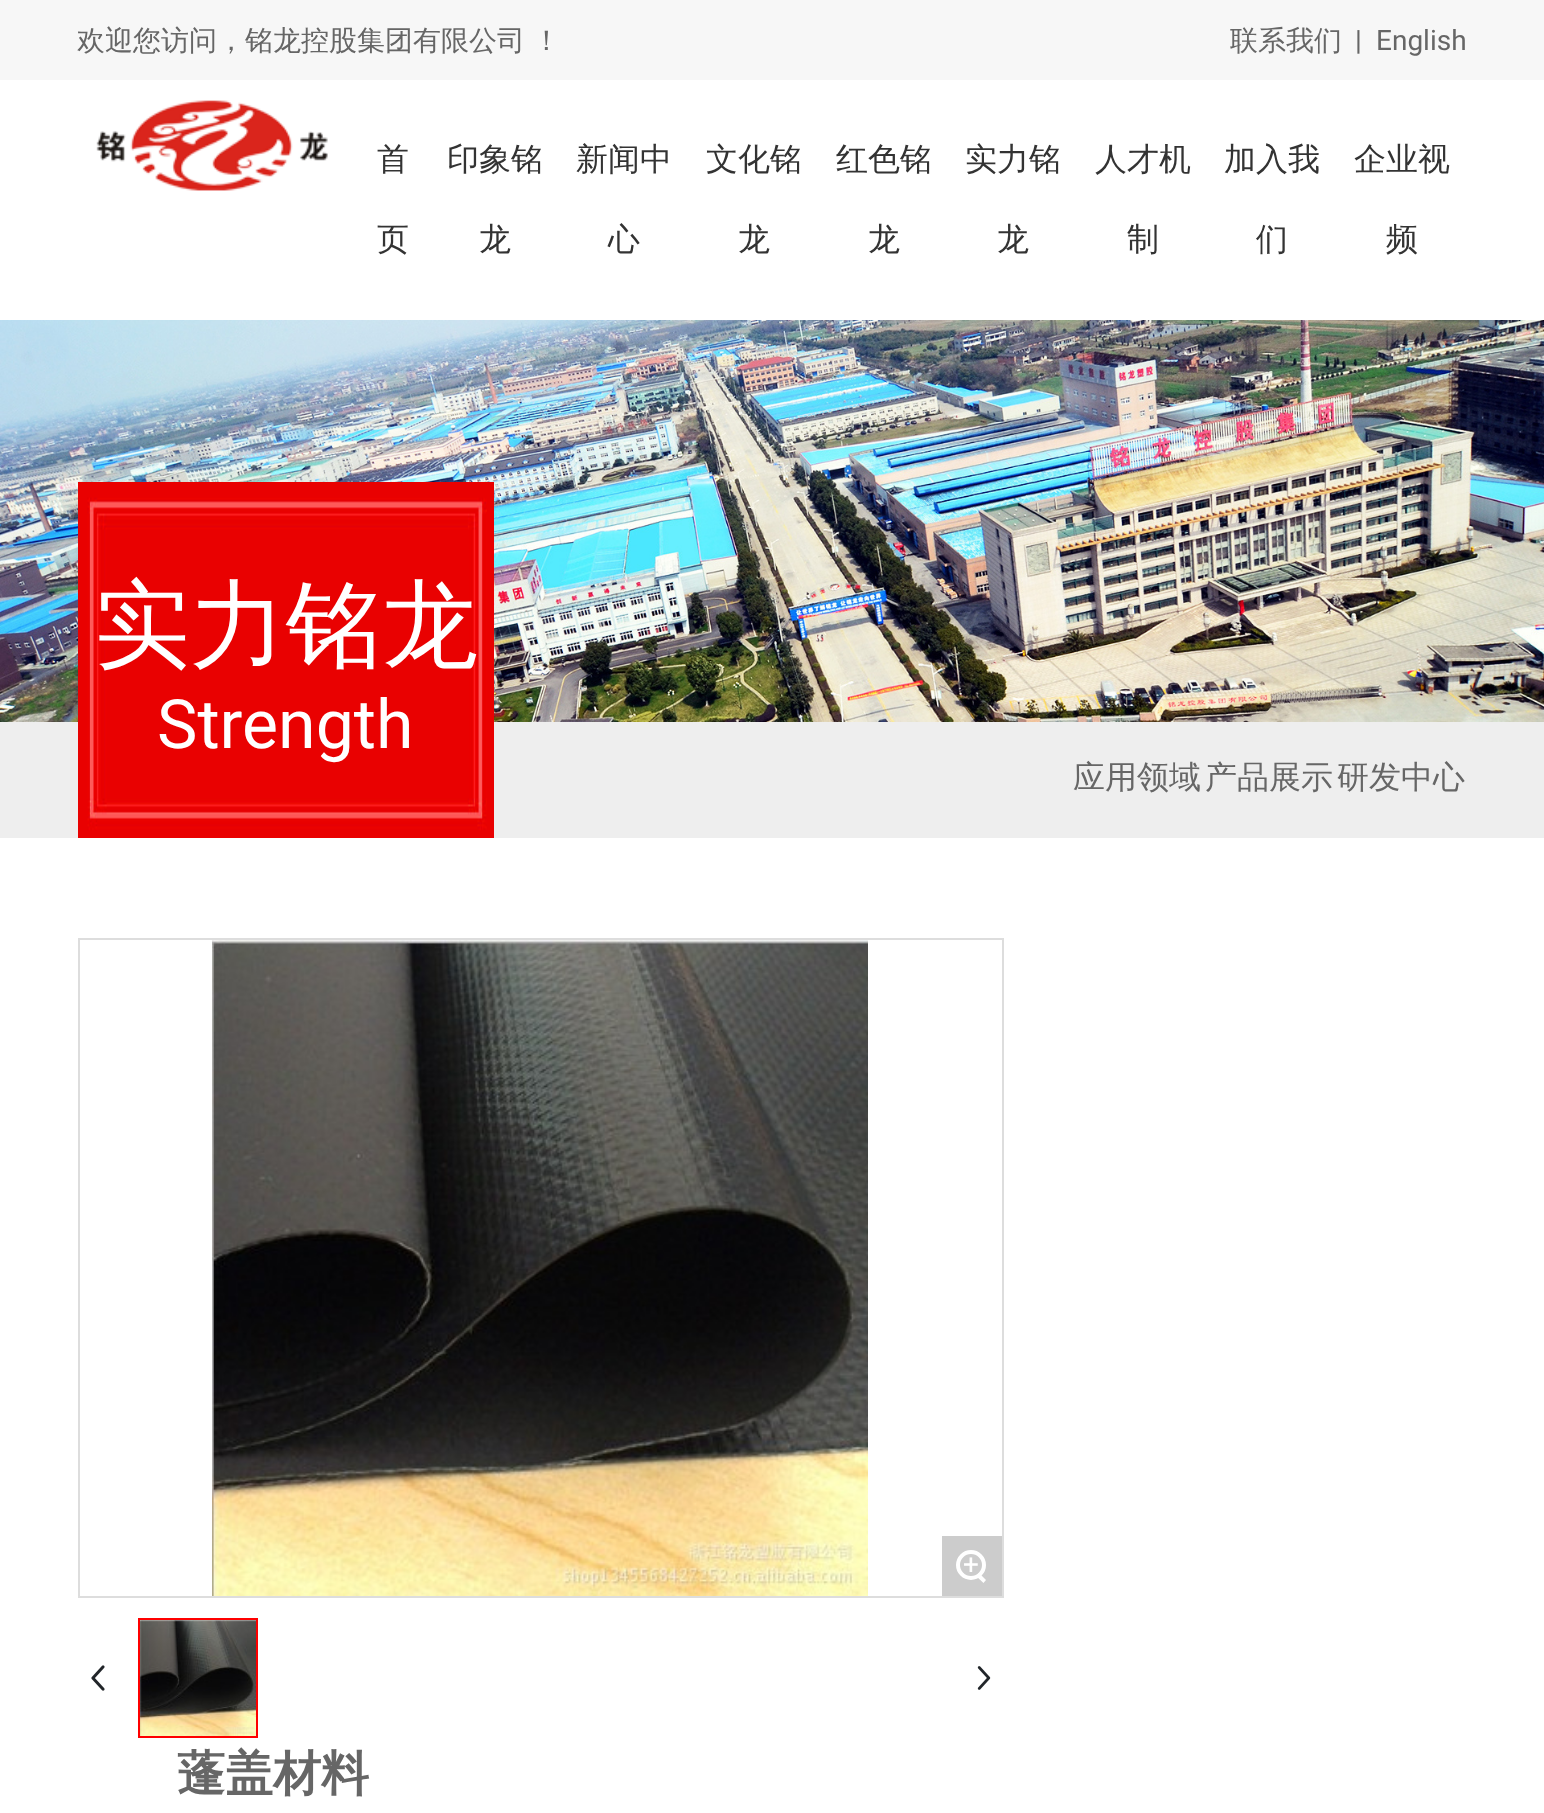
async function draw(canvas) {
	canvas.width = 1544;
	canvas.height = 1813;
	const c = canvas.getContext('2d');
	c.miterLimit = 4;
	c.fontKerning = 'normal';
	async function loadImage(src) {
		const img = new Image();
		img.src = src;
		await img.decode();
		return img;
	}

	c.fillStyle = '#fff';
	c.fillRect(0, 0, 1544, 1813);
	c.fillStyle = '#f7f7f7';
	c.fillRect(0, 0, 1544, 80);
	c.wordSpacing = '-1px';
	c.font = '500 28px WenQuanYi Zen Hei';
	c.fillStyle = '#666';
	c.fillText('欢迎您访问，铭龙控股集团有限公司 ！', 77, 50);
	c.wordSpacing = '0px';
	c.fillText('联系我们', 1230, 50);
	c.font = '28px Roboto';
	c.fillText('|', 1355, 50);
	c.fillText('English', 1376, 50);
	c.drawImage(await loadImage('img1.png'), 96, 100, 232, 91);
	c.font = '500 32px WenQuanYi Zen Hei';
	c.fillStyle = '#333';
	for (const [text, x, y] of [
		['首', 377, 170],
		['页', 377, 250],
		['印象铭', 447, 170],
		['龙', 479, 250],
		['新闻中', 576, 170],
		['心', 608, 250],
		['文化铭', 706, 170],
		['龙', 738, 250],
		['红色铭', 836, 170],
		['龙', 868, 250],
		['实力铭', 965, 170],
		['龙', 997, 250],
		['人才机', 1095, 170],
		['制', 1127, 250],
		['加入我', 1224, 170],
		['们', 1256, 250],
		['企业视', 1354, 170],
		['频', 1386, 250],
	]) {
		c.fillText(text, x, y);
	}
	c.drawImage(await loadImage('img2.png'), 0, 320, 1544, 402);
	c.fillStyle = '#eee';
	c.fillRect(0, 722, 1544, 116);
	c.drawImage(await loadImage('img3.png'), 78, 482, 416, 356);
	c.font = '500 96px WenQuanYi Zen Hei';
	c.fillStyle = '#fff';
	c.fillText('实力铭龙', 94, 658);
	c.font = '68px Roboto';
	c.fillText('Strength', 157, 748);
	c.font = '500 32px WenQuanYi Zen Hei';
	c.fillStyle = '#666';
	for (const [text, x, y] of [
		['应用领域', 1073, 788],
		['产品展示', 1205, 788],
		['研发中心', 1337, 788],
	]) {
		c.fillText(text, x, y);
	}
	c.strokeStyle = '#ddd';
	c.lineWidth = 2;
	c.strokeRect(79, 939, 924, 658);
	c.drawImage(await loadImage('img4.png'), 212, 940, 656, 656);
	c.fillStyle = '#ccc';
	c.fillRect(942, 1536, 60, 60);
	c.beginPath();
	c.arc(971, 1565, 13, 0, 2 * Math.PI);
	c.strokeStyle = '#fff';
	c.lineWidth = 4;
	c.stroke();
	c.font = '28px Roboto';
	c.fillStyle = '#fff';
	c.fillText('+', 963, 1574);
	c.beginPath();
	c.moveTo(979, 1573);
	c.lineTo(986, 1580);
	c.lineTo(983.5, 1583);
	c.lineTo(976, 1576);
	c.closePath();
	c.fill();
	c.strokeStyle = '#f00';
	c.lineWidth = 2;
	c.strokeRect(139, 1619, 118, 118);
	c.drawImage(await loadImage('img5.png'), 140, 1620, 116, 116);
	c.drawImage(await loadImage('img6.png'), 91, 1665, 14, 26);
	c.drawImage(await loadImage('img7.png'), 977, 1666, 14, 24);
	c.font = 'bold 48px WenQuanYi Zen Hei';
	c.fillStyle = '#666';
	c.fillText('蓬盖材料', 177, 1790);
}

draw(document.querySelector('canvas'));
